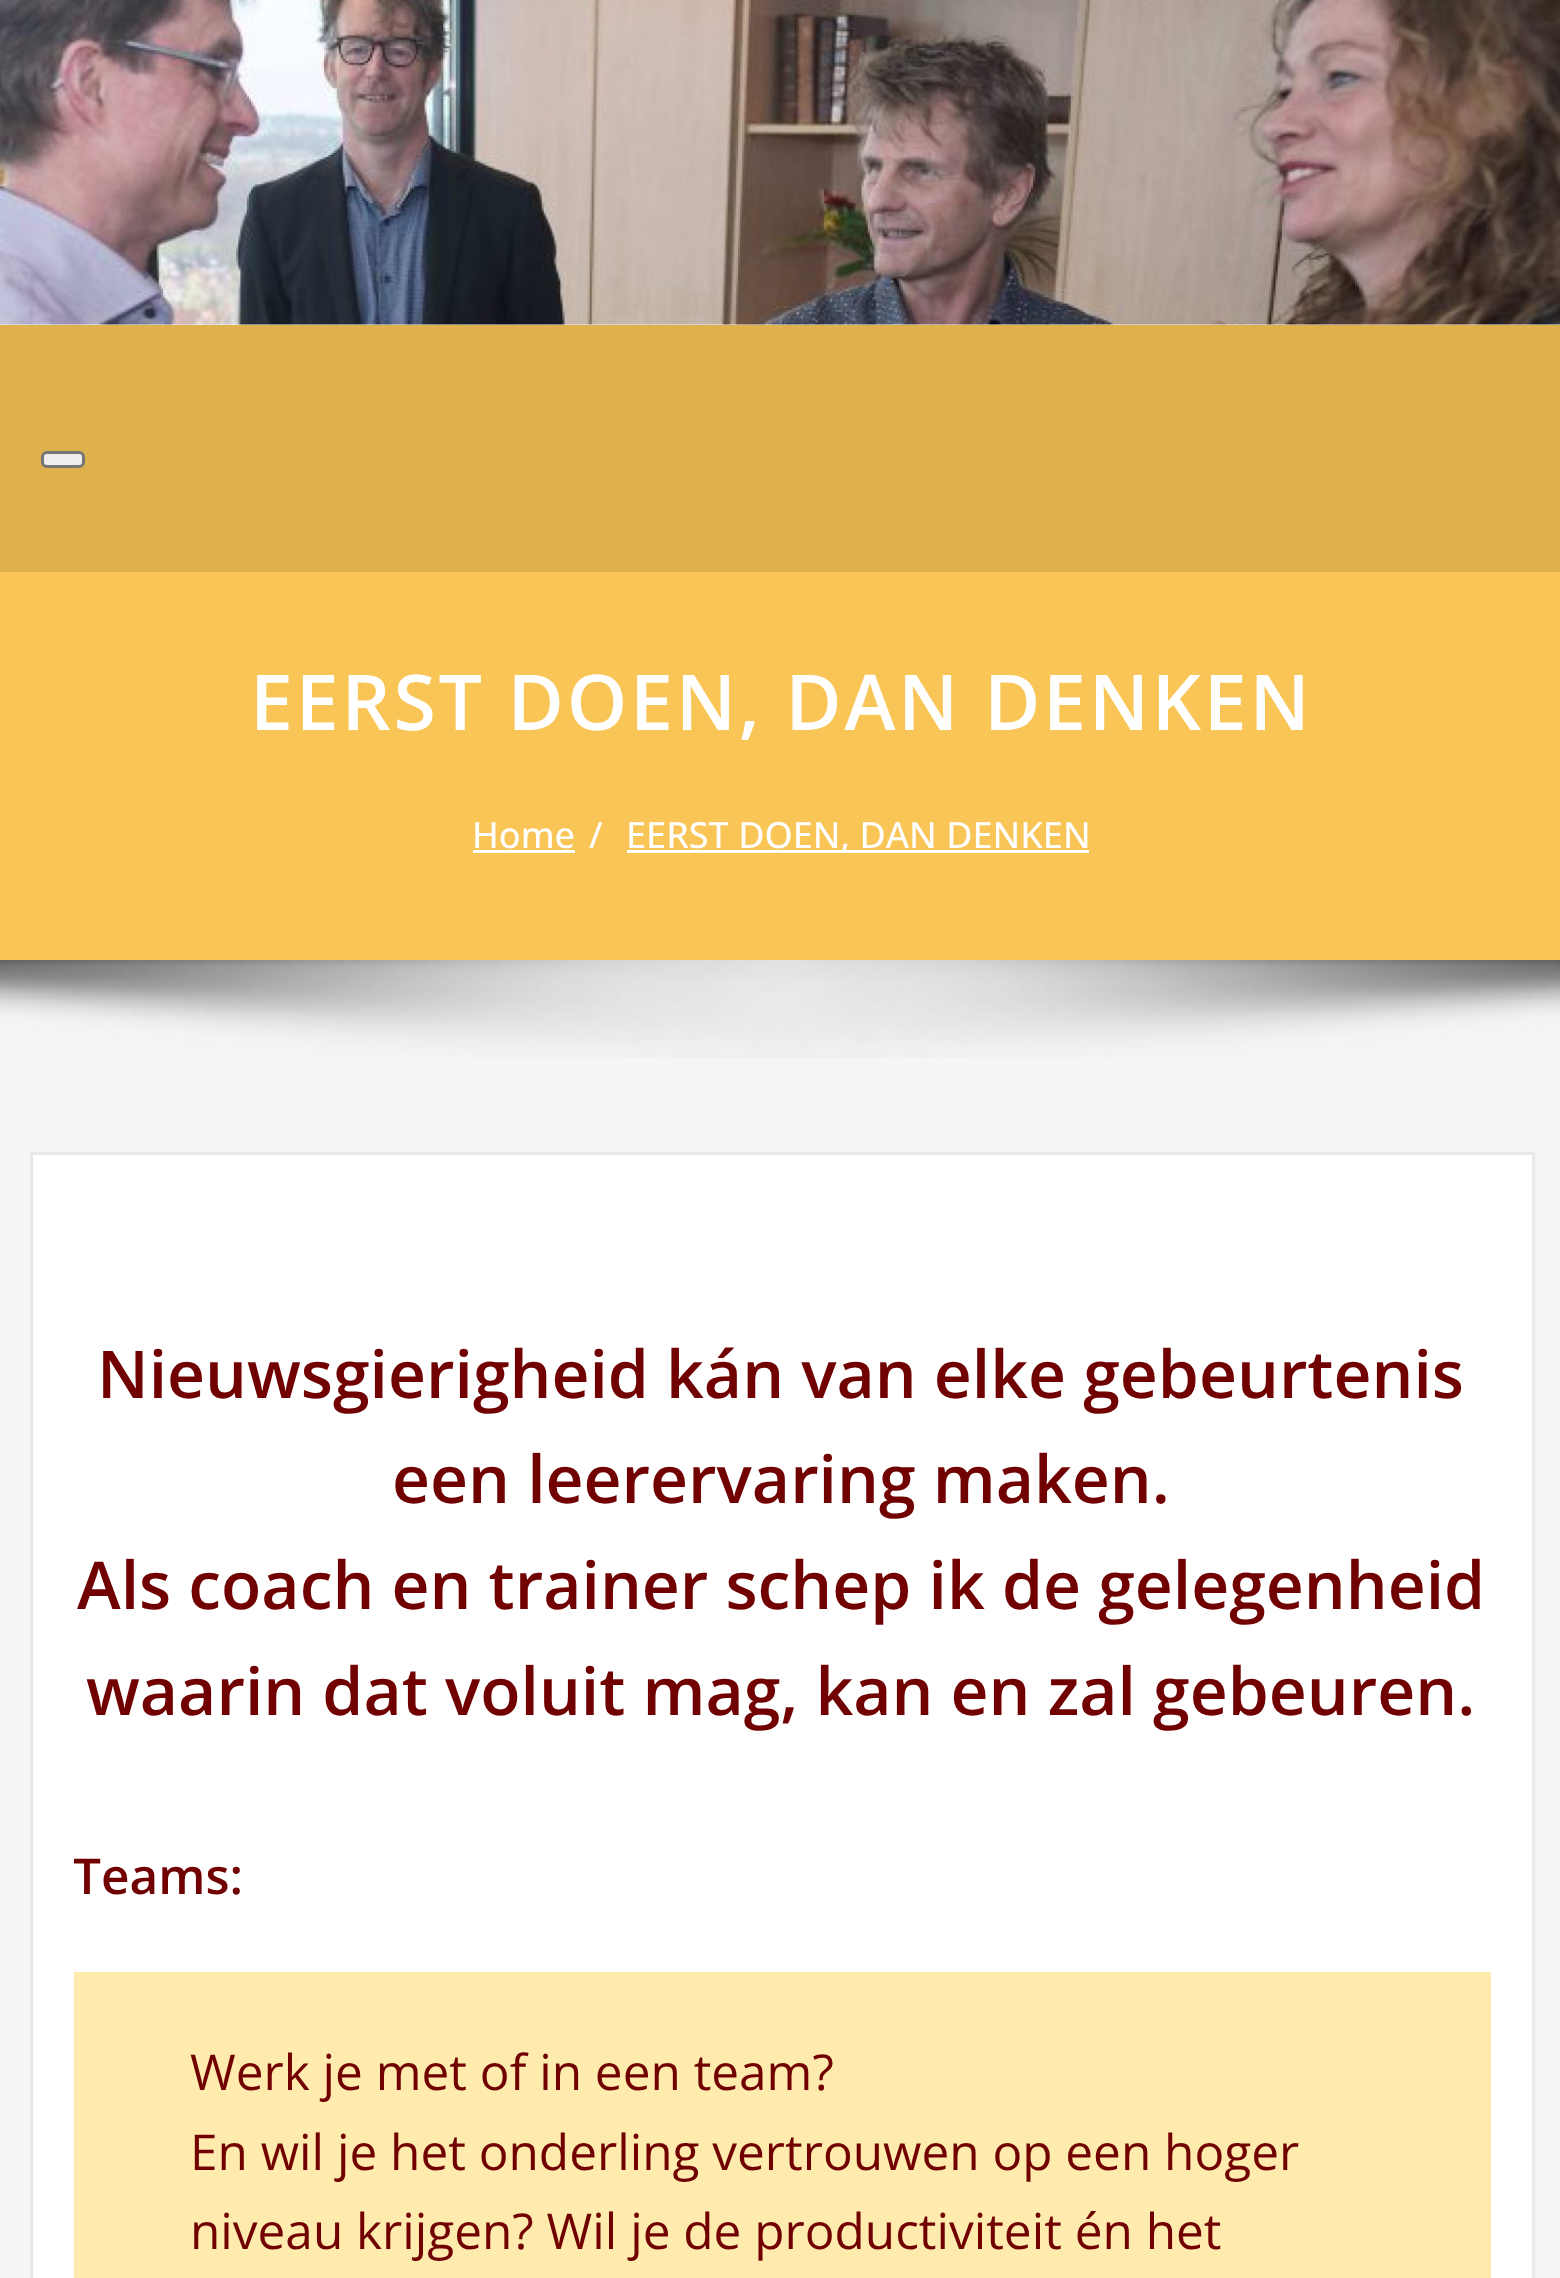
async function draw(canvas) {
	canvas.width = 1560;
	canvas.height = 2278;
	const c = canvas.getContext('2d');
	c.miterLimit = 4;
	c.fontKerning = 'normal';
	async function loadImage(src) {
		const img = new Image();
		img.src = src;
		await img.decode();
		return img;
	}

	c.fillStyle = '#f5f5f5';
	c.fillRect(0, 0, 1560, 2278);
	c.drawImage(await loadImage('img1.png'), 0, 0, 1560, 325);
	c.fillStyle = '#dfb14d';
	c.fillRect(0, 325, 1560, 247);
	c.fillStyle = '#efefef';
	c.beginPath();
	c.roundRect(42.5, 452.5, 41, 14, 4.5);
	c.fill();
	c.strokeStyle = '#767676';
	c.lineWidth = 3;
	c.stroke();
	c.fillStyle = '#f8c556';
	c.fillRect(0, 572, 1560, 388);
	c.letterSpacing = '2.75px';
	c.font = '600 77px Open Sans';
	c.fillStyle = '#fff';
	c.fillText('EERST DOEN, DAN DENKEN', 250, 730);
	c.letterSpacing = '0px';
	c.font = '500 36.1px Open Sans';
	c.fillText('Home', 472, 848);
	c.fillRect(473, 850, 102, 3);
	c.fillText('/', 589, 848);
	c.fillRect(627, 850, 462, 3);
	c.fillText('EERST DOEN, DAN DENKEN', 626, 848);
	c.drawImage(await loadImage('img2.png'), 0, 960, 1560, 98);
	c.beginPath();
	c.rect(31.5, 1153.5, 1502, 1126);
	c.fill();
	c.strokeStyle = '#e9e9e9';
	c.stroke();
	c.font = '600 66px Open Sans';
	c.fillStyle = '#710000';
	for (const [text, x, y] of [
		['Nieuwsgierigheid kán van elke gebeurtenis', 97, 1398],
		['een leerervaring maken.', 392, 1503],
		['Als coach en trainer schep ik de gelegenheid', 77, 1609],
		['waarin dat voluit mag, kan en zal gebeuren.', 86, 1715],
	]) {
		c.fillText(text, x, y);
	}
	c.save();
	c.beginPath();
	c.rect(74, 1238, 1417, 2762);
	c.clip();
	c.font = '600 49.5px Open Sans';
	c.fillText('Teams:', 73, 1894);
	c.restore();
	c.fillStyle = '#ffebad';
	c.fillRect(74, 1972, 1417, 306);
	c.font = '49.5px Open Sans';
	c.fillStyle = '#710000';
	for (const [text, x, y] of [
		['Werk je met of in een team?', 190, 2090],
		['En wil je het onderling vertrouwen op een hoger', 190, 2170],
		['niveau krijgen? Wil je de productiviteit én het', 190, 2249],
	]) {
		c.fillText(text, x, y);
	}
}

draw(document.querySelector('canvas'));
